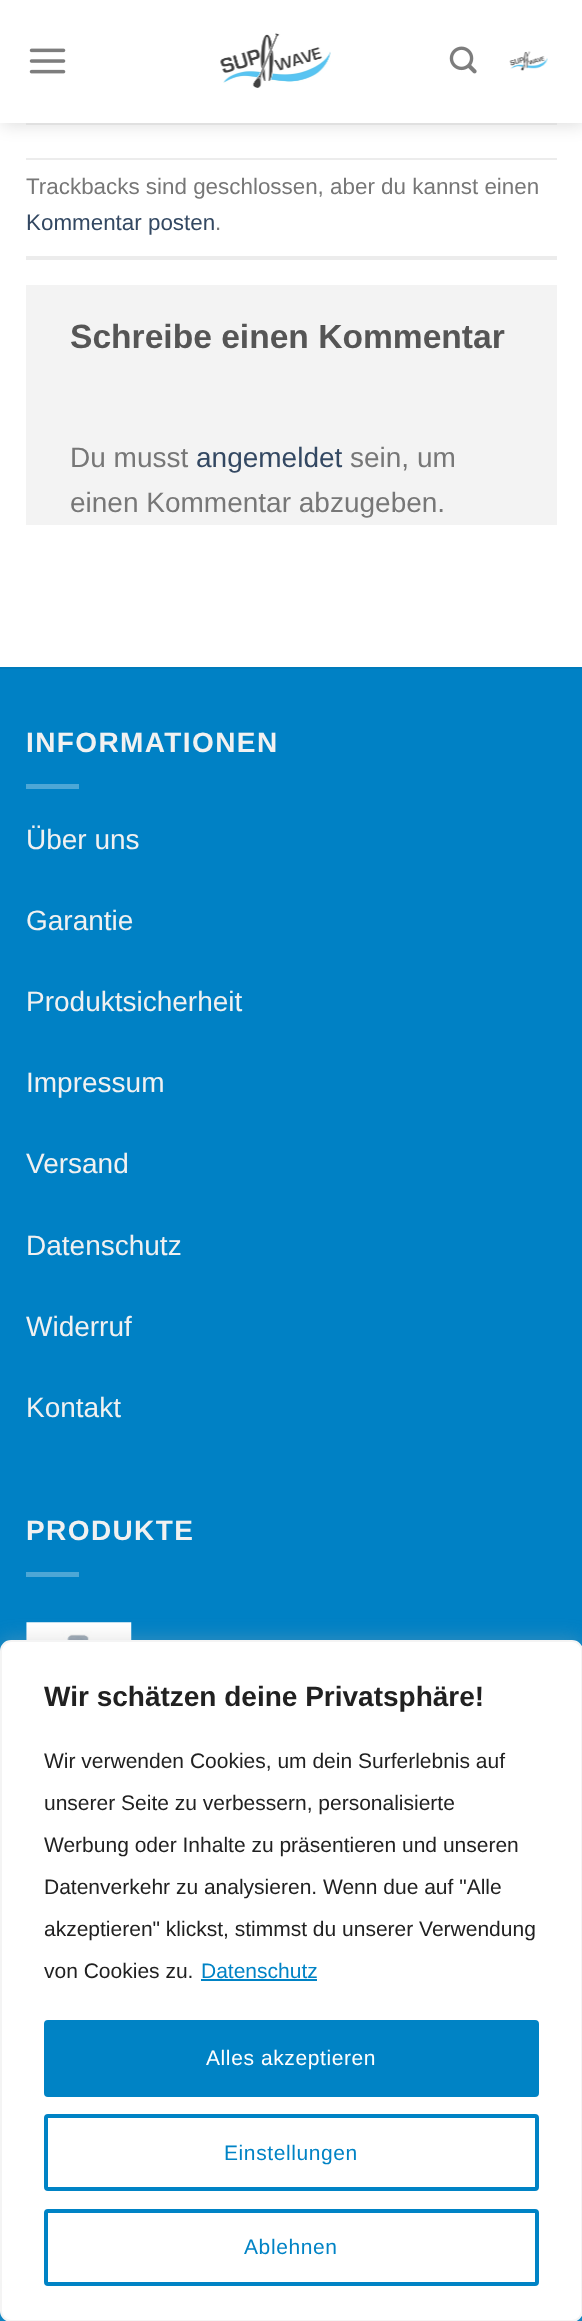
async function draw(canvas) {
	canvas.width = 582;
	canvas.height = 2321;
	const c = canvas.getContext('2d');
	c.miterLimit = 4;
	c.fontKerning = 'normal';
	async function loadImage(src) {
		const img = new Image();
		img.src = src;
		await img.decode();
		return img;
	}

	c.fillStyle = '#fff';
	c.fillRect(0, 0, 582, 2321);
	c.save();
	c.beginPath();
	c.moveTo(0, 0);
	c.lineTo(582, 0);
	c.lineTo(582, 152);
	c.lineTo(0, 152);
	c.closePath();
	c.moveTo(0, 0);
	c.lineTo(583, 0);
	c.lineTo(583, 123);
	c.lineTo(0, 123);
	c.closePath();
	c.clip('evenodd');
	c.fillStyle = '#00000026';
	c.filter = 'blur(9px)';
	c.beginPath();
	c.rect(2, 2, 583, 122);
	c.fill();
	c.filter = 'none';
	c.restore();
	c.drawImage(await loadImage('img1.png'), 29, 48, 37, 26);
	c.drawImage(await loadImage('img2.png'), 220, 0, 111, 88);
	c.drawImage(await loadImage('img3.png'), 449, 46, 28, 28);
	c.drawImage(await loadImage('img4.png'), 509, 51, 39, 20);
	for (const [x, y, w, h, color] of [
		[26, 123, 531, 2, '#e0e0e0'],
		[0, 122, 582, 1, '#ffffffe6'],
		[26, 158, 531, 2, '#ececec'],
		[26, 256, 531, 4, '#ececec'],
	]) {
		c.fillStyle = color;
		c.fillRect(x, y, w, h);
	}
	c.font = '22.4px Liberation Sans';
	c.fillStyle = '#777';
	c.fillText('Trackbacks sind geschlossen, aber du kannst einen', 26, 194);
	c.fillStyle = '#334862';
	c.fillText('Kommentar posten', 26, 230);
	c.fillStyle = '#777';
	c.fillText('.', 215, 230);
	c.fillStyle = '#f3f3f3';
	c.fillRect(26, 285, 531, 240);
	c.font = 'bold 33.6px Liberation Sans';
	c.fillStyle = '#555';
	c.fillText('Schreibe einen Kommentar', 70, 348);
	c.font = '28px Liberation Sans';
	c.fillStyle = '#777';
	c.fillText('Du musst', 70, 467);
	c.fillStyle = '#334862';
	c.fillText('angemeldet', 196, 467);
	c.fillStyle = '#777';
	c.fillText('sein, um', 350, 467);
	c.fillText('einen Kommentar abzugeben.', 70, 512);
	c.fillStyle = '#0081c5';
	c.fillRect(0, 669, 582, 1652);
	c.fillStyle = '#007bbb';
	c.fillRect(0, 667, 582, 2);
	c.letterSpacing = '1.4px';
	c.font = 'bold 28px Liberation Sans';
	c.fillStyle = '#f1f1f1';
	c.fillText('INFORMATIONEN', 26, 752);
	c.fillStyle = '#4da7d6';
	c.fillRect(26, 784, 53, 5);
	c.letterSpacing = '0px';
	c.font = '28px Liberation Sans';
	c.fillStyle = '#f1f1f1';
	for (const [text, x, y] of [
		['Über uns', 26, 849],
		['Garantie', 26, 930],
		['Produktsicherheit', 26, 1011],
		['Impressum', 26, 1092],
		['Versand', 26, 1173],
		['Datenschutz', 26, 1255],
		['Widerruf', 26, 1336],
		['Kontakt', 26, 1417],
	]) {
		c.fillText(text, x, y);
	}
	c.letterSpacing = '1.4px';
	c.font = 'bold 28px Liberation Sans';
	c.fillText('PRODUKTE', 26, 1540);
	c.fillStyle = '#4da7d6';
	c.fillRect(26, 1572, 53, 5);
	c.drawImage(await loadImage('img5.png'), 26, 1622, 106, 18);
	c.fillStyle = '#acabab4d';
	c.filter = 'blur(9px)';
	c.beginPath();
	c.roundRect(0, 1638, 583, 683, 11);
	c.fill();
	c.filter = 'none';
	c.fillStyle = '#fff';
	c.beginPath();
	c.roundRect(1, 1641, 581, 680, 10);
	c.fill();
	c.strokeStyle = '#f4f4f4';
	c.lineWidth = 2;
	c.stroke();
	c.letterSpacing = '0px';
	c.fillStyle = '#212121';
	c.fillText('Wir schätzen deine Privatsphäre!', 44, 1706);
	c.font = '21px Liberation Sans';
	for (const [text, x, y] of [
		['Wir verwenden Cookies, um dein Surferlebnis auf', 44, 1768],
		['unserer Seite zu verbessern, personalisierte', 44, 1810],
		['Werbung oder Inhalte zu präsentieren und unseren', 44, 1852],
		['Datenverkehr zu analysieren. Wenn due auf "Alle', 44, 1894],
		['akzeptieren" klickst, stimmst du unserer Verwendung', 44, 1936],
		['von Cookies zu.', 44, 1978],
	]) {
		c.fillText(text, x, y);
	}
	c.fillStyle = '#0083c5';
	c.fillText('Datenschutz', 201, 1978);
	c.fillRect(201, 1979, 116, 2);
	c.beginPath();
	c.roundRect(46, 2022, 491, 73, 2);
	c.fill();
	c.strokeStyle = '#0083c5';
	c.lineWidth = 4;
	c.stroke();
	c.letterSpacing = '0.6px';
	c.fillStyle = '#fff';
	c.fillText('Alles akzeptieren', 206, 2065);
	c.beginPath();
	c.roundRect(46, 2116, 491, 73, 2);
	c.stroke();
	c.fillStyle = '#0083c5';
	c.fillText('Einstellungen', 224, 2160);
	c.beginPath();
	c.roundRect(46, 2211, 491, 73, 2);
	c.stroke();
	c.fillText('Ablehnen', 244, 2254);
}

draw(document.querySelector('canvas'));
